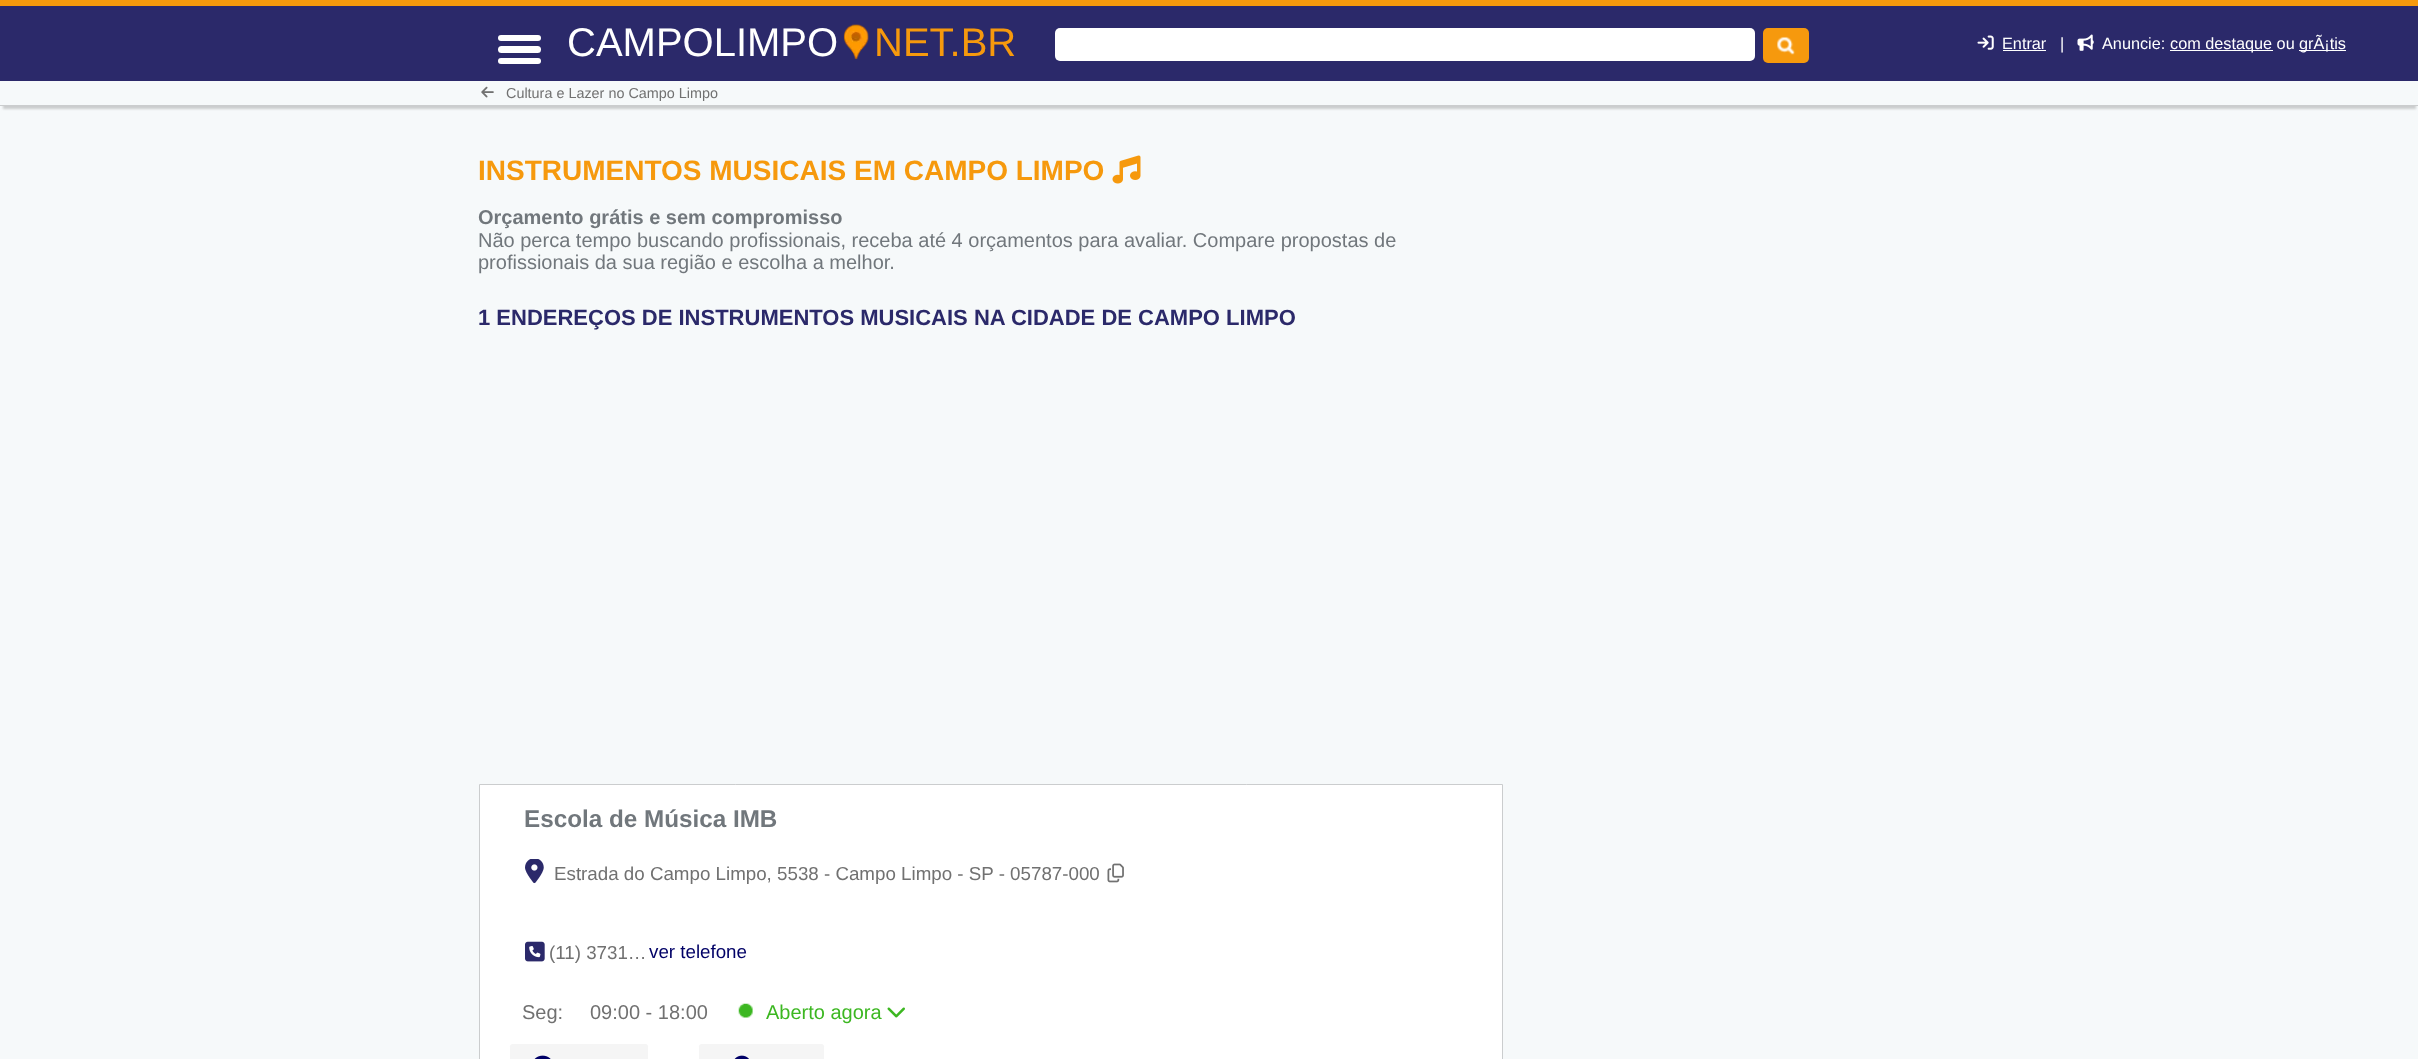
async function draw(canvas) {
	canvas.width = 2418;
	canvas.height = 1059;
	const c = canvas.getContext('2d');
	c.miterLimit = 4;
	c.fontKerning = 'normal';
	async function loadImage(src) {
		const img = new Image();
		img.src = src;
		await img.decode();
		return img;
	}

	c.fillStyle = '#f6f9fa';
	c.fillRect(0, 0, 2418, 1059);
	c.save();
	c.beginPath();
	c.rect(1, 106, 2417, 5);
	c.clip();
	c.fillStyle = '#cbcdce';
	c.filter = 'blur(1px)';
	c.beginPath();
	c.rect(3, 81, 2413, 28);
	c.fill();
	c.filter = 'none';
	c.restore();
	c.fillStyle = '#2b296a';
	c.fillRect(0, 6, 2418, 75);
	c.fillStyle = '#f6990d';
	c.fillRect(0, 0, 2418, 6);
	c.fillStyle = '#fff';
	c.beginPath();
	c.roundRect(498, 35, 43, 6, 3);
	c.fill();
	c.beginPath();
	c.roundRect(498, 46, 43, 7, 3.5);
	c.fill();
	c.beginPath();
	c.roundRect(498, 58, 43, 6, 3);
	c.fill();
	c.font = '40px Liberation Sans';
	c.fillText('CAMPOLIMPO', 567, 56);
	c.drawImage(await loadImage('img1.png'), 843, 24, 26, 36);
	c.fillStyle = '#f6990d';
	c.fillText('NET.BR', 874, 56);
	c.fillStyle = '#fff';
	c.beginPath();
	c.roundRect(1055, 28, 700, 33, 5);
	c.fill();
	c.fillStyle = '#f6990d';
	c.beginPath();
	c.roundRect(1763, 28, 46, 35, 5);
	c.fill();
	c.drawImage(await loadImage('img2.png'), 1777, 36, 18, 19);
	c.drawImage(await loadImage('img3.png'), 1977, 35, 17, 15);
	c.font = '16.25px Liberation Sans';
	c.fillStyle = '#fff';
	c.fillText('Entrar', 2002, 49);
	c.fillRect(2003, 50, 43, 1);
	c.fillText('|', 2060, 49);
	c.drawImage(await loadImage('img4.png'), 2077, 34, 17, 17);
	c.fillText('Anuncie:', 2102, 49);
	c.fillRect(2170, 50, 103, 1);
	c.fillText('com destaque ou', 2170, 49);
	c.fillRect(2299, 50, 47, 1);
	c.fillText('grÃ¡tis', 2299, 49);
	c.fillStyle = '#cbcdce';
	c.fillRect(0, 105, 2418, 1);
	c.drawImage(await loadImage('img5.png'), 481, 86, 13, 12);
	c.font = '14.4px Liberation Sans';
	c.fillStyle = '#717171';
	c.fillText('Cultura e Lazer no Campo Limpo', 506, 98);
	c.font = 'bold 28px Liberation Sans';
	c.fillStyle = '#f6990d';
	c.fillText('INSTRUMENTOS MUSICAIS EM CAMPO LIMPO', 478, 180);
	c.drawImage(await loadImage('img6.png'), 1112, 155, 29, 29);
	c.font = 'bold 20px Liberation Sans';
	c.fillStyle = '#71777c';
	c.fillText('Orçamento grátis e sem compromisso', 478, 224);
	c.font = '20px Liberation Sans';
	c.fillText('Não perca tempo buscando profissionais, receba até 4 orçamentos para avaliar. Compare propostas de', 478, 247);
	c.fillText('profissionais da sua região e escolha a melhor.', 478, 269);
	c.font = 'bold 22px Liberation Sans';
	c.fillStyle = '#2b296a';
	c.fillText('1 ENDEREÇOS DE INSTRUMENTOS MUSICAIS NA CIDADE DE CAMPO LIMPO', 478, 325);
	c.fillStyle = '#fff';
	c.beginPath();
	c.rect(479.5, 784.5, 1023, 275);
	c.fill();
	c.strokeStyle = '#cbcdce';
	c.stroke();
	c.font = 'bold 24.25px Liberation Sans';
	c.fillStyle = '#71777c';
	c.fillText('Escola de Música IMB', 524, 827);
	c.drawImage(await loadImage('img7.png'), 525, 859, 19, 25);
	c.font = '18.75px Liberation Sans';
	c.fillStyle = '#717171';
	c.fillText('Estrada do Campo Limpo, 5538 - Campo Limpo - SP - 05787-000', 554, 880);
	c.drawImage(await loadImage('img8.png'), 1107, 863, 17, 20);
	c.drawImage(await loadImage('img9.png'), 525, 941, 20, 21);
	c.fillText('(11) 3731…', 549, 959);
	c.fillStyle = '#006';
	c.fillText('ver telefone', 649, 958);
	c.font = '20px Liberation Sans';
	c.fillStyle = '#717171';
	c.fillText('Seg:', 522, 1019);
	c.fillText('09:00 - 18:00', 590, 1019);
	c.drawImage(await loadImage('img10.png'), 738, 1003, 15, 15);
	c.fillStyle = '#3cb721';
	c.fillText('Aberto agora', 766, 1019);
	c.drawImage(await loadImage('img11.png'), 887, 1007, 18, 11);
	c.fillStyle = '#f5f5f5';
	c.beginPath();
	c.roundRect(510, 1044, 138, 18, 2.5);
	c.fill();
	c.drawImage(await loadImage('img12.png'), 534, 1055, 17, 4);
	c.beginPath();
	c.roundRect(699, 1044, 125, 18, 2.5);
	c.fill();
	c.drawImage(await loadImage('img13.png'), 734, 1055, 15, 4);
}

draw(document.querySelector('canvas'));
